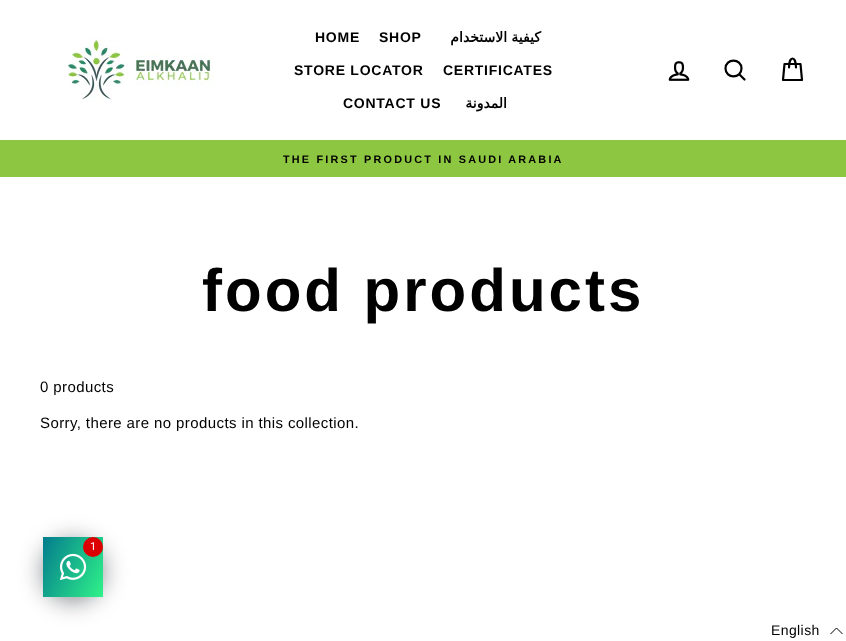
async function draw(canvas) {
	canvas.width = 846;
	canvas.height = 641;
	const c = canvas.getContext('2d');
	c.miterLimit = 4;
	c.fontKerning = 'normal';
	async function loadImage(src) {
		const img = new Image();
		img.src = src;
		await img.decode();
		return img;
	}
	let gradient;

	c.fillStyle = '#fff';
	c.fillRect(0, 0, 846, 641);
	c.drawImage(await loadImage('img1.png'), 67, 38, 147, 63);
	c.letterSpacing = '0.75px';
	c.font = 'bold 14px Liberation Sans';
	c.fillStyle = '#000';
	c.fillText('HOME', 315, 42);
	c.fillText('SHOP', 379, 42);
	c.wordSpacing = '-1px';
	c.direction = 'rtl';
	c.font = 'bold 14px DejaVu Sans';
	c.fillText('كيفية الاستخدام', 541, 42);
	c.wordSpacing = '0px';
	c.direction = 'ltr';
	c.font = 'bold 14px Liberation Sans';
	for (const [text, x, y] of [
		['STORE LOCATOR', 294, 75],
		['CERTIFICATES', 443, 75],
		['CONTACT US', 343, 108],
	]) {
		c.fillText(text, x, y);
	}
	c.direction = 'rtl';
	c.font = 'bold 14px DejaVu Sans';
	c.fillText('المدونة', 507, 108);
	c.drawImage(await loadImage('img2.png'), 668, 61, 22, 20);
	c.beginPath();
	c.moveTo(741.5, 68.5);
	c.bezierCurveTo(741.5, 79, 725.5, 79, 725.5, 68.5);
	c.bezierCurveTo(725.5, 58, 741.5, 58, 741.5, 68.5);
	c.closePath();
	c.moveTo(744.5, 79.5);
	c.lineTo(739.5, 74.5);
	c.strokeStyle = '#000';
	c.lineWidth = 2.2;
	c.lineCap = 'round';
	c.lineJoin = 'round';
	c.stroke();
	c.beginPath();
	c.moveTo(789, 67.5);
	c.bezierCurveTo(789, 55.5, 796, 55.5, 796, 67.5);
	c.moveTo(784.5, 64);
	c.lineTo(800.5, 64);
	c.lineTo(802, 80);
	c.lineTo(783, 80);
	c.closePath();
	c.stroke();
	c.fillStyle = '#8dc641';
	c.fillRect(0, 140, 846, 37);
	c.letterSpacing = '2.2px';
	c.direction = 'ltr';
	c.font = 'bold 10.85px Liberation Sans';
	c.fillStyle = '#000';
	c.fillText('THE FIRST PRODUCT IN SAUDI ARABIA', 283, 163);
	c.letterSpacing = '3px';
	c.font = 'bold 60px Liberation Sans';
	c.fillText('food products', 202, 311);
	c.letterSpacing = '0.4px';
	c.font = '15px Liberation Sans';
	c.fillText('0 products', 40, 392);
	c.fillText('Sorry, there are no products in this collection.', 40, 428);
	c.fillStyle = '#02061080';
	c.filter = 'blur(12px)';
	c.beginPath();
	c.roundRect(43, 541, 60, 60, 30);
	c.fill();
	c.filter = 'none';
	gradient = c.createLinearGradient(37, 550, 109, 584);
	gradient.addColorStop(0, '#047c8d');
	gradient.addColorStop(1, '#2ff289');
	c.fillStyle = gradient;
	c.fillRect(43, 537, 60, 60);
	c.drawImage(await loadImage('img3.png'), 60, 553, 27, 27);
	c.fillStyle = '#d00';
	c.beginPath();
	c.arc(93, 547, 10, 0, 2 * Math.PI);
	c.fill();
	c.font = '11px Roboto';
	c.fillStyle = '#fff';
	c.fillText('1', 90, 550);
	c.font = '14px Liberation Sans';
	c.fillStyle = '#000';
	c.fillText('English', 771, 635);
	c.beginPath();
	c.moveTo(842.5, 634);
	c.lineTo(836.5, 628);
	c.lineTo(830.5, 634);
	c.lineWidth = 1;
	c.lineCap = 'butt';
	c.lineJoin = 'miter';
	c.stroke();
}

draw(document.querySelector('canvas'));
